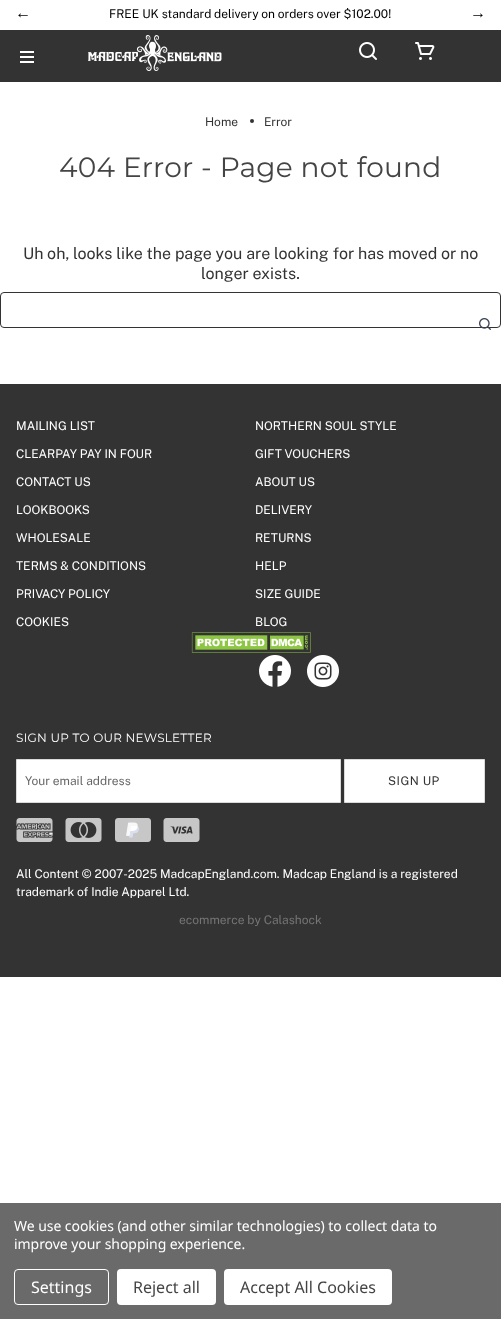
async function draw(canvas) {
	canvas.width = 501;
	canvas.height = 1319;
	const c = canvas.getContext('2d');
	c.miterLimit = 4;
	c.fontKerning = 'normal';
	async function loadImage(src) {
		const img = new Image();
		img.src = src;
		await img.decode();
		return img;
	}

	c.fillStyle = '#fff';
	c.fillRect(0, 0, 501, 1319);
	c.font = '16px Liberation Sans';
	c.fillStyle = '#000';
	c.fillText('←', 15, 18);
	c.font = '100 12px Public Sans';
	c.fillText('FREE UK standard delivery on orders over $‌102.00!', 109, 18);
	c.font = '16px Liberation Sans';
	c.fillText('→', 470, 18);
	for (const [x, y, w, h, color] of [
		[0, 30, 501, 52, '#333'],
		[20, 56, 14, 2, '#fff'],
		[20, 51, 14, 2, '#fff'],
		[20, 61, 14, 2, '#fff'],
	]) {
		c.fillStyle = color;
		c.fillRect(x, y, w, h);
	}
	c.drawImage(await loadImage('img1.png'), 88, 35, 134, 36);
	c.drawImage(await loadImage('img2.png'), 359, 42, 18, 18);
	c.drawImage(await loadImage('img3.png'), 415, 42, 20, 18);
	c.font = '100 12px Public Sans';
	c.fillStyle = '#333';
	c.fillText('Home', 205, 126);
	c.beginPath();
	c.arc(252, 121, 2, 0, 2 * Math.PI);
	c.fill();
	c.fillText('Error', 264, 126);
	c.letterSpacing = '0.25px';
	c.font = '28px Montserrat';
	c.fillStyle = '#444';
	c.fillText('404 Error - Page not found', 59, 177);
	c.letterSpacing = '0px';
	c.font = '100 16px Public Sans';
	c.fillStyle = '#333';
	c.fillText('Uh oh, looks like the page you are looking for has moved or no', 23, 259);
	c.fillText('longer exists.', 201, 279);
	c.beginPath();
	c.roundRect(0.5, 292.5, 500, 35, 3.5);
	c.strokeStyle = '#333';
	c.stroke();
	c.drawImage(await loadImage('img4.png'), 479, 318, 12, 12);
	c.fillRect(0, 384, 501, 593);
	c.font = '100 12px Public Sans';
	c.fillStyle = '#fff';
	for (const [text, x, y] of [
		['MAILING LIST', 16, 430],
		['NORTHERN SOUL STYLE', 255, 430],
		['CLEARPAY PAY IN FOUR', 16, 458],
		['GIFT VOUCHERS', 255, 458],
		['CONTACT US', 16, 486],
		['ABOUT US', 255, 486],
		['LOOKBOOKS', 16, 514],
		['DELIVERY', 255, 514],
		['WHOLESALE', 16, 542],
		['RETURNS', 255, 542],
		['TERMS & CONDITIONS', 16, 570],
		['HELP', 255, 570],
		['PRIVACY POLICY', 16, 598],
		['SIZE GUIDE', 255, 598],
		['COOKIES', 16, 626],
		['BLOG', 255, 626],
	]) {
		c.fillText(text, x, y);
	}
	c.drawImage(await loadImage('img5.png'), 191, 632, 120, 21);
	c.drawImage(await loadImage('img6.png'), 259, 655, 32, 32);
	c.drawImage(await loadImage('img7.png'), 307, 655, 32, 32);
	c.letterSpacing = '0.25px';
	c.font = '12px Montserrat';
	c.fillText('SIGN UP TO OUR NEWSLETTER', 16, 742);
	c.beginPath();
	c.rect(16.5, 759.5, 324, 43);
	c.fill();
	c.strokeStyle = '#dbdada';
	c.stroke();
	c.letterSpacing = '0px';
	c.font = '100 12px Public Sans';
	c.fillStyle = '#666';
	c.fillText('Your email address', 25, 785);
	c.fillStyle = '#fff';
	c.beginPath();
	c.rect(344.5, 759.5, 140, 43);
	c.fill();
	c.stroke();
	c.letterSpacing = '0.5px';
	c.fillStyle = '#333';
	c.fillText('SIGN UP', 388, 785);
	c.drawImage(await loadImage('img8.png'), 16, 818, 37, 24);
	c.drawImage(await loadImage('img9.png'), 65, 818, 37, 24);
	c.drawImage(await loadImage('img10.png'), 115, 818, 36, 24);
	c.drawImage(await loadImage('img11.png'), 163, 818, 37, 24);
	c.letterSpacing = '0px';
	c.fillStyle = '#fff';
	c.fillText('All Content © 2007-2025 MadcapEngland.com. Madcap England is a registered', 16, 878);
	c.fillText('trademark of Indie Apparel Ltd.', 16, 896);
	c.fillStyle = '#757575';
	c.fillText('ecommerce by Calashock', 179, 924);
	c.fillStyle = '#6a6a6a';
	c.fillRect(0, 1203, 501, 116);
	c.letterSpacing = '-0.05px';
	c.font = '14px Noto Sans';
	c.fillStyle = '#fff';
	c.fillText('We use cookies (and other similar technologies) to collect data to', 14, 1231);
	c.fillText('improve your shopping experience.', 14, 1249);
	c.beginPath();
	c.roundRect(14.5, 1269.5, 94, 35, 3.5);
	c.strokeStyle = '#fff';
	c.stroke();
	c.letterSpacing = '0px';
	c.font = '16px Noto Sans';
	c.fillText('Settings', 31, 1293);
	c.beginPath();
	c.roundRect(117, 1269, 99, 36, 4);
	c.fill();
	c.fillStyle = '#444';
	c.fillText('Reject all', 133, 1293);
	c.fillStyle = '#fff';
	c.beginPath();
	c.roundRect(224, 1269, 168, 36, 4);
	c.fill();
	c.fillStyle = '#444';
	c.fillText('Accept All Cookies', 240, 1293);
}

draw(document.querySelector('canvas'));
